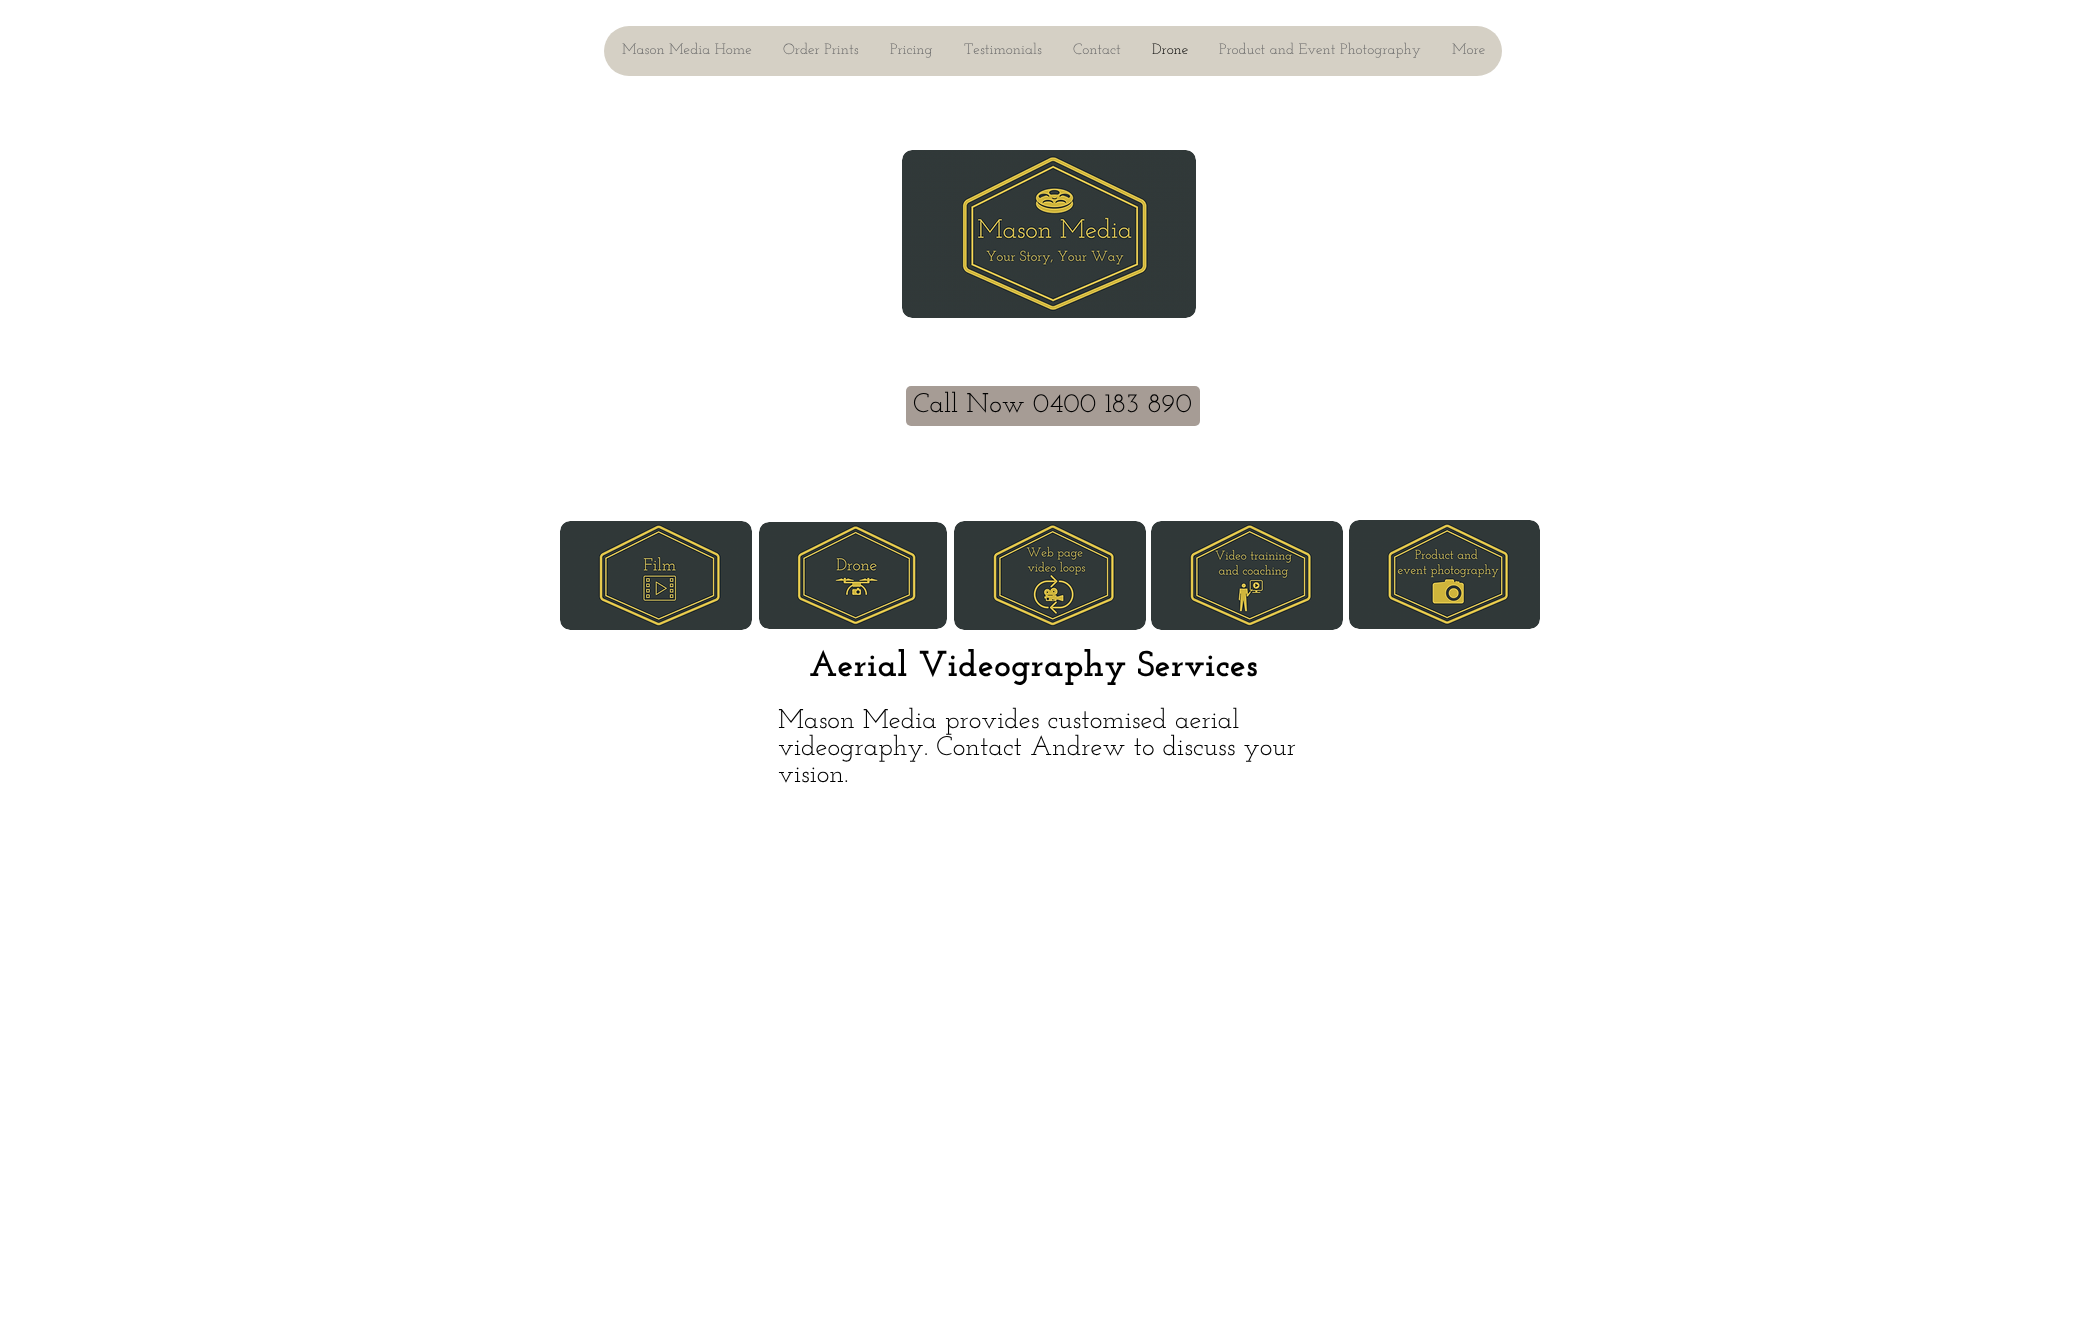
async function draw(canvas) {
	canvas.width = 2100;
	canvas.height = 1329;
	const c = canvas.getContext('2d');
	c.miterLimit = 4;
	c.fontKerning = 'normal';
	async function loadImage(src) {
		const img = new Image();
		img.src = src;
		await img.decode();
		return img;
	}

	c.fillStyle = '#fff';
	c.fillRect(0, 0, 2100, 1329);
	c.fillStyle = '#d5d0c5';
	c.beginPath();
	c.roundRect(604, 26, 898, 50, 25);
	c.fill();
	c.font = '15px Josefin Slab';
	c.fillStyle = '#696969';
	for (const [text, x, y] of [
		['Mason Media Home', 622, 54],
		['Order Prints', 783, 54],
		['Pricing', 890, 54],
		['Testimonials', 964, 54],
		['Contact', 1073, 54],
	]) {
		c.fillText(text, x, y);
	}
	c.fillStyle = '#000';
	c.fillText('Drone', 1152, 54);
	c.fillStyle = '#696969';
	c.fillText('Product and Event Photography', 1219, 54);
	c.fillText('More', 1452, 54);
	c.drawImage(await loadImage('img1.png'), 902, 150, 294, 168);
	c.fillStyle = '#a69c95';
	c.beginPath();
	c.roundRect(906, 386, 294, 40, 5);
	c.fill();
	c.font = '27px Josefin Slab';
	c.fillStyle = '#000';
	c.fillText('Call Now 0400 183 890', 913, 412);
	c.drawImage(await loadImage('img2.png'), 560, 521, 192, 109);
	c.drawImage(await loadImage('img3.png'), 1349, 520, 191, 109);
	c.drawImage(await loadImage('img4.png'), 759, 522, 188, 107);
	c.drawImage(await loadImage('img5.png'), 954, 521, 192, 109);
	c.drawImage(await loadImage('img6.png'), 1151, 521, 192, 109);
	c.font = 'bold 36px Josefin Slab';
	c.fillText('Aerial Videography Services', 809, 676);
	c.font = '27px Josefin Slab';
	for (const [text, x, y] of [
		['Mason Media provides customised aerial', 778, 728],
		['videography. Contact Andrew to discuss your', 778, 755],
		['vision.', 778, 782],
	]) {
		c.fillText(text, x, y);
	}
}

draw(document.querySelector('canvas'));
